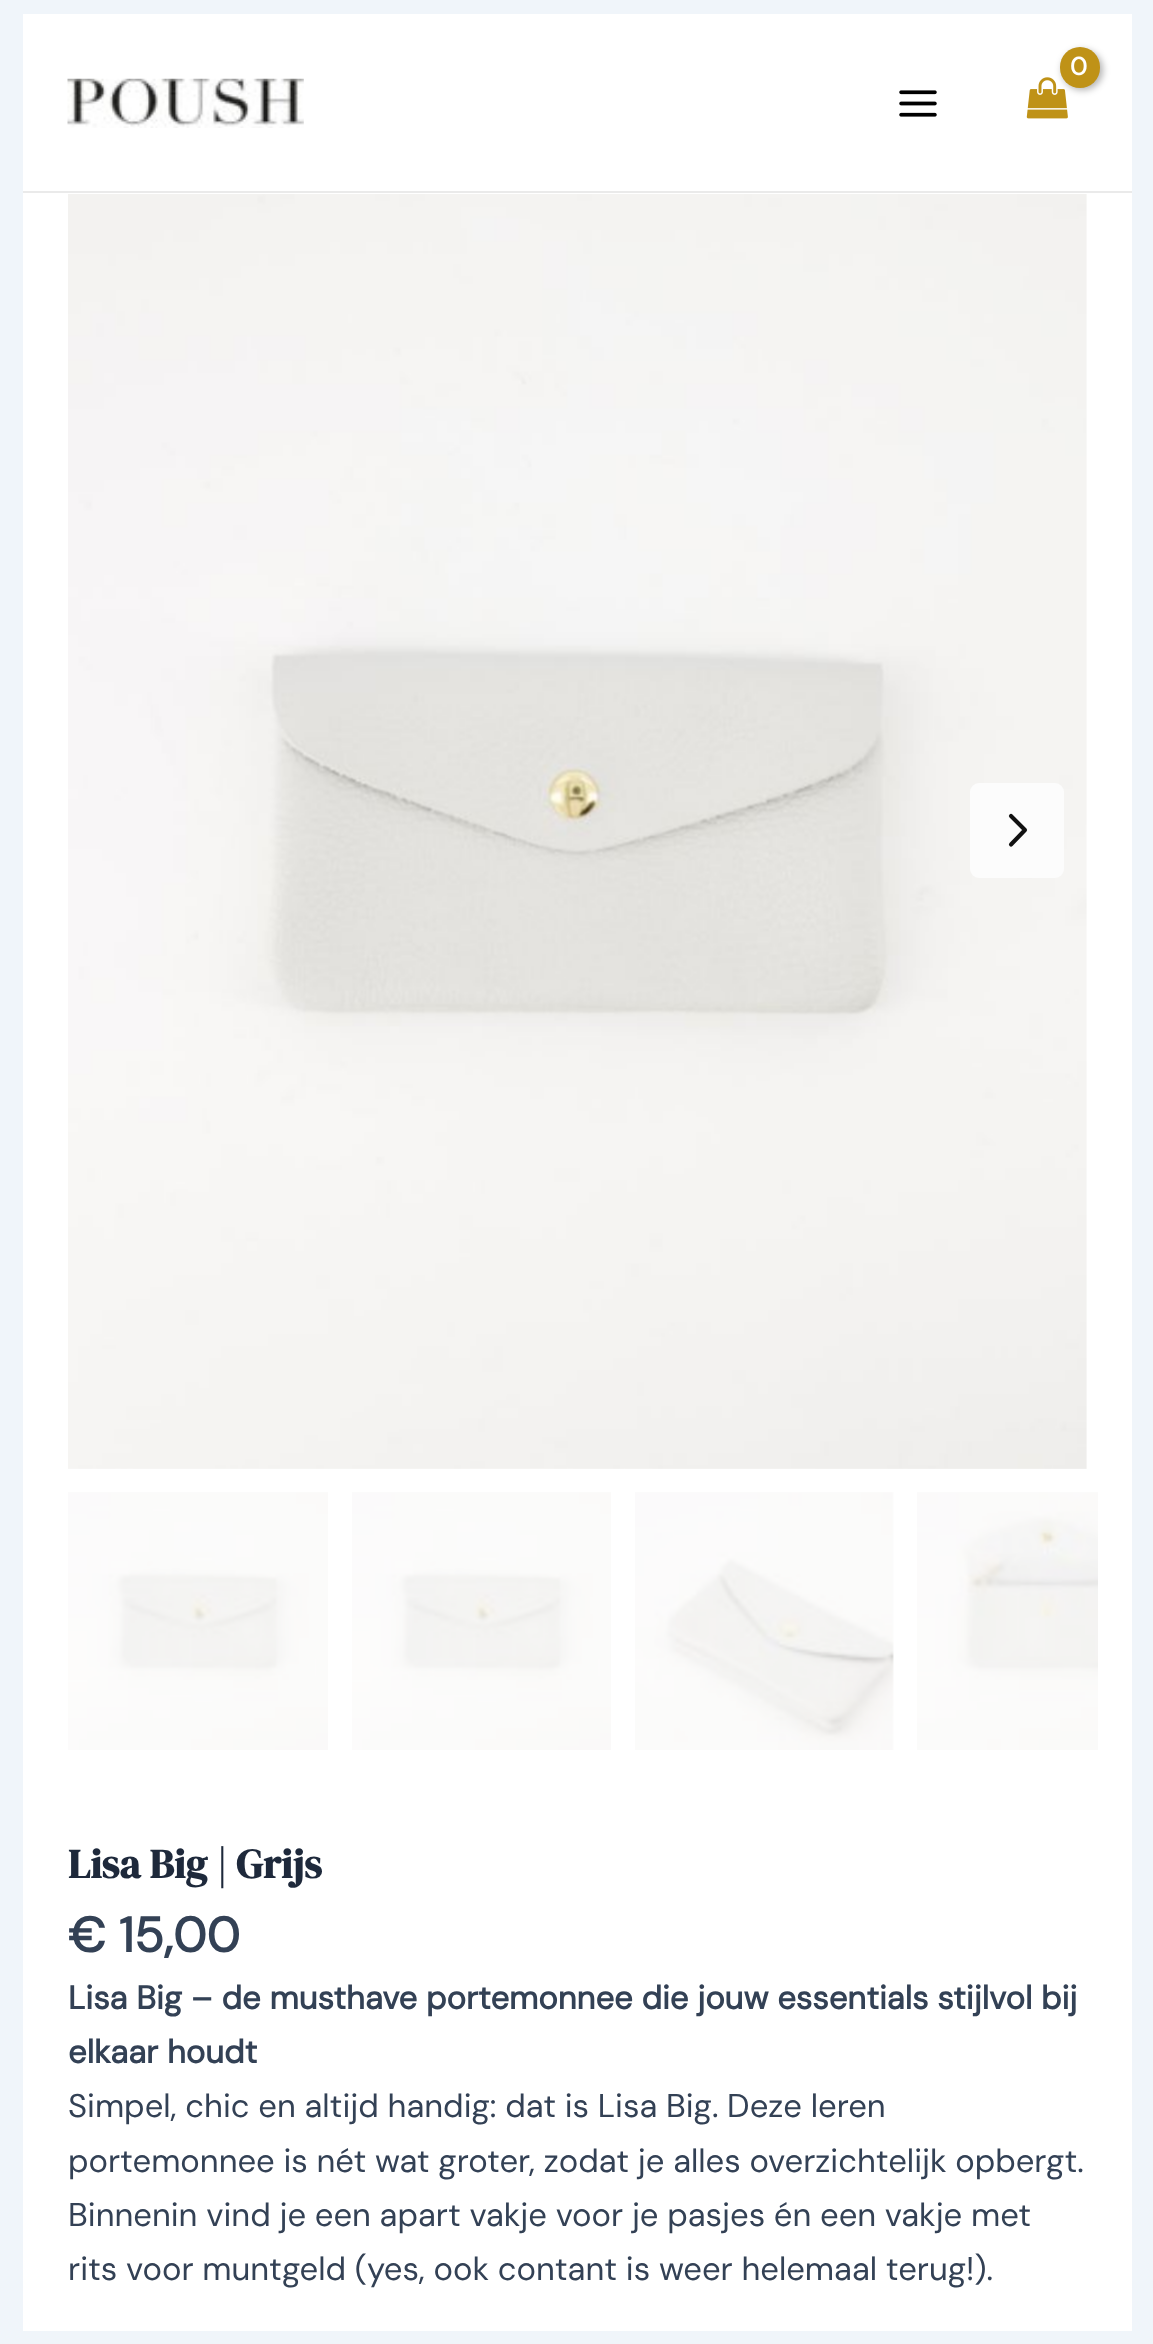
async function draw(canvas) {
	canvas.width = 1153;
	canvas.height = 2344;
	const c = canvas.getContext('2d');
	c.miterLimit = 4;
	c.fontKerning = 'normal';
	async function loadImage(src) {
		const img = new Image();
		img.src = src;
		await img.decode();
		return img;
	}

	c.fillStyle = '#f0f5fa';
	c.fillRect(0, 0, 1153, 2344);
	c.fillStyle = '#fff';
	c.fillRect(23, 14, 1109, 2317);
	c.fillStyle = '#eaeaea';
	c.fillRect(23, 191, 1109, 2);
	c.drawImage(await loadImage('img1.png'), 1026, 77, 42, 42);
	c.fillStyle = '#0000004d';
	c.filter = 'blur(3.5px)';
	c.beginPath();
	c.roundRect(1062, 50, 41, 40, 20);
	c.fill();
	c.filter = 'none';
	c.fillStyle = '#bf9217';
	c.beginPath();
	c.roundRect(1060, 47, 40, 41, 20);
	c.fill();
	c.letterSpacing = '-1px';
	c.font = 'bold 25px DM Sans';
	c.fillStyle = '#fff';
	c.fillText('0', 1070, 75);
	c.drawImage(await loadImage('img2.png'), 899, 90, 38, 27);
	c.drawImage(await loadImage('img3.png'), 67, 78, 237, 50);
	c.drawImage(await loadImage('img4.png'), 68, 194, 1019, 1275);
	c.fillStyle = '#fcfcfc';
	c.beginPath();
	c.roundRect(970, 783, 94, 95, 9);
	c.fill();
	c.beginPath();
	c.moveTo(1011, 844.5);
	c.lineTo(1025, 830);
	c.lineTo(1011, 816);
	c.strokeStyle = '#111';
	c.lineWidth = 4.1;
	c.lineCap = 'round';
	c.lineJoin = 'round';
	c.stroke();
	c.drawImage(await loadImage('img5.png'), 68, 1492, 260, 258);
	c.drawImage(await loadImage('img6.png'), 352, 1492, 259, 258);
	c.drawImage(await loadImage('img7.png'), 635, 1492, 259, 258);
	c.drawImage(await loadImage('img8.png'), 917, 1492, 181, 258);
	c.letterSpacing = '0px';
	c.font = 'bold 41px DM Serif Display';
	c.fillStyle = '#1e293b';
	c.fillText('Lisa Big | Grijs', 68, 1878);
	c.font = 'bold 49px DM Sans';
	c.fillStyle = '#334155';
	c.fillText('€ 15,00', 68, 1952);
	c.font = 'bold 32.8px DM Sans';
	c.fillText('Lisa Big – de musthave portemonnee die jouw essentials stijlvol bij', 68, 2009);
	c.fillText('elkaar houdt', 68, 2063);
	c.font = '32.8px DM Sans';
	for (const [text, x, y] of [
		['Simpel, chic en altijd handig: dat is Lisa Big. Deze leren', 68, 2117],
		['portemonnee is nét wat groter, zodat je alles overzichtelijk opbergt.', 68, 2172],
		['Binnenin vind je een apart vakje voor je pasjes én een vakje met', 68, 2226],
		['rits voor muntgeld (yes, ook contant is weer helemaal terug!).', 68, 2280],
	]) {
		c.fillText(text, x, y);
	}
}

draw(document.querySelector('canvas'));
